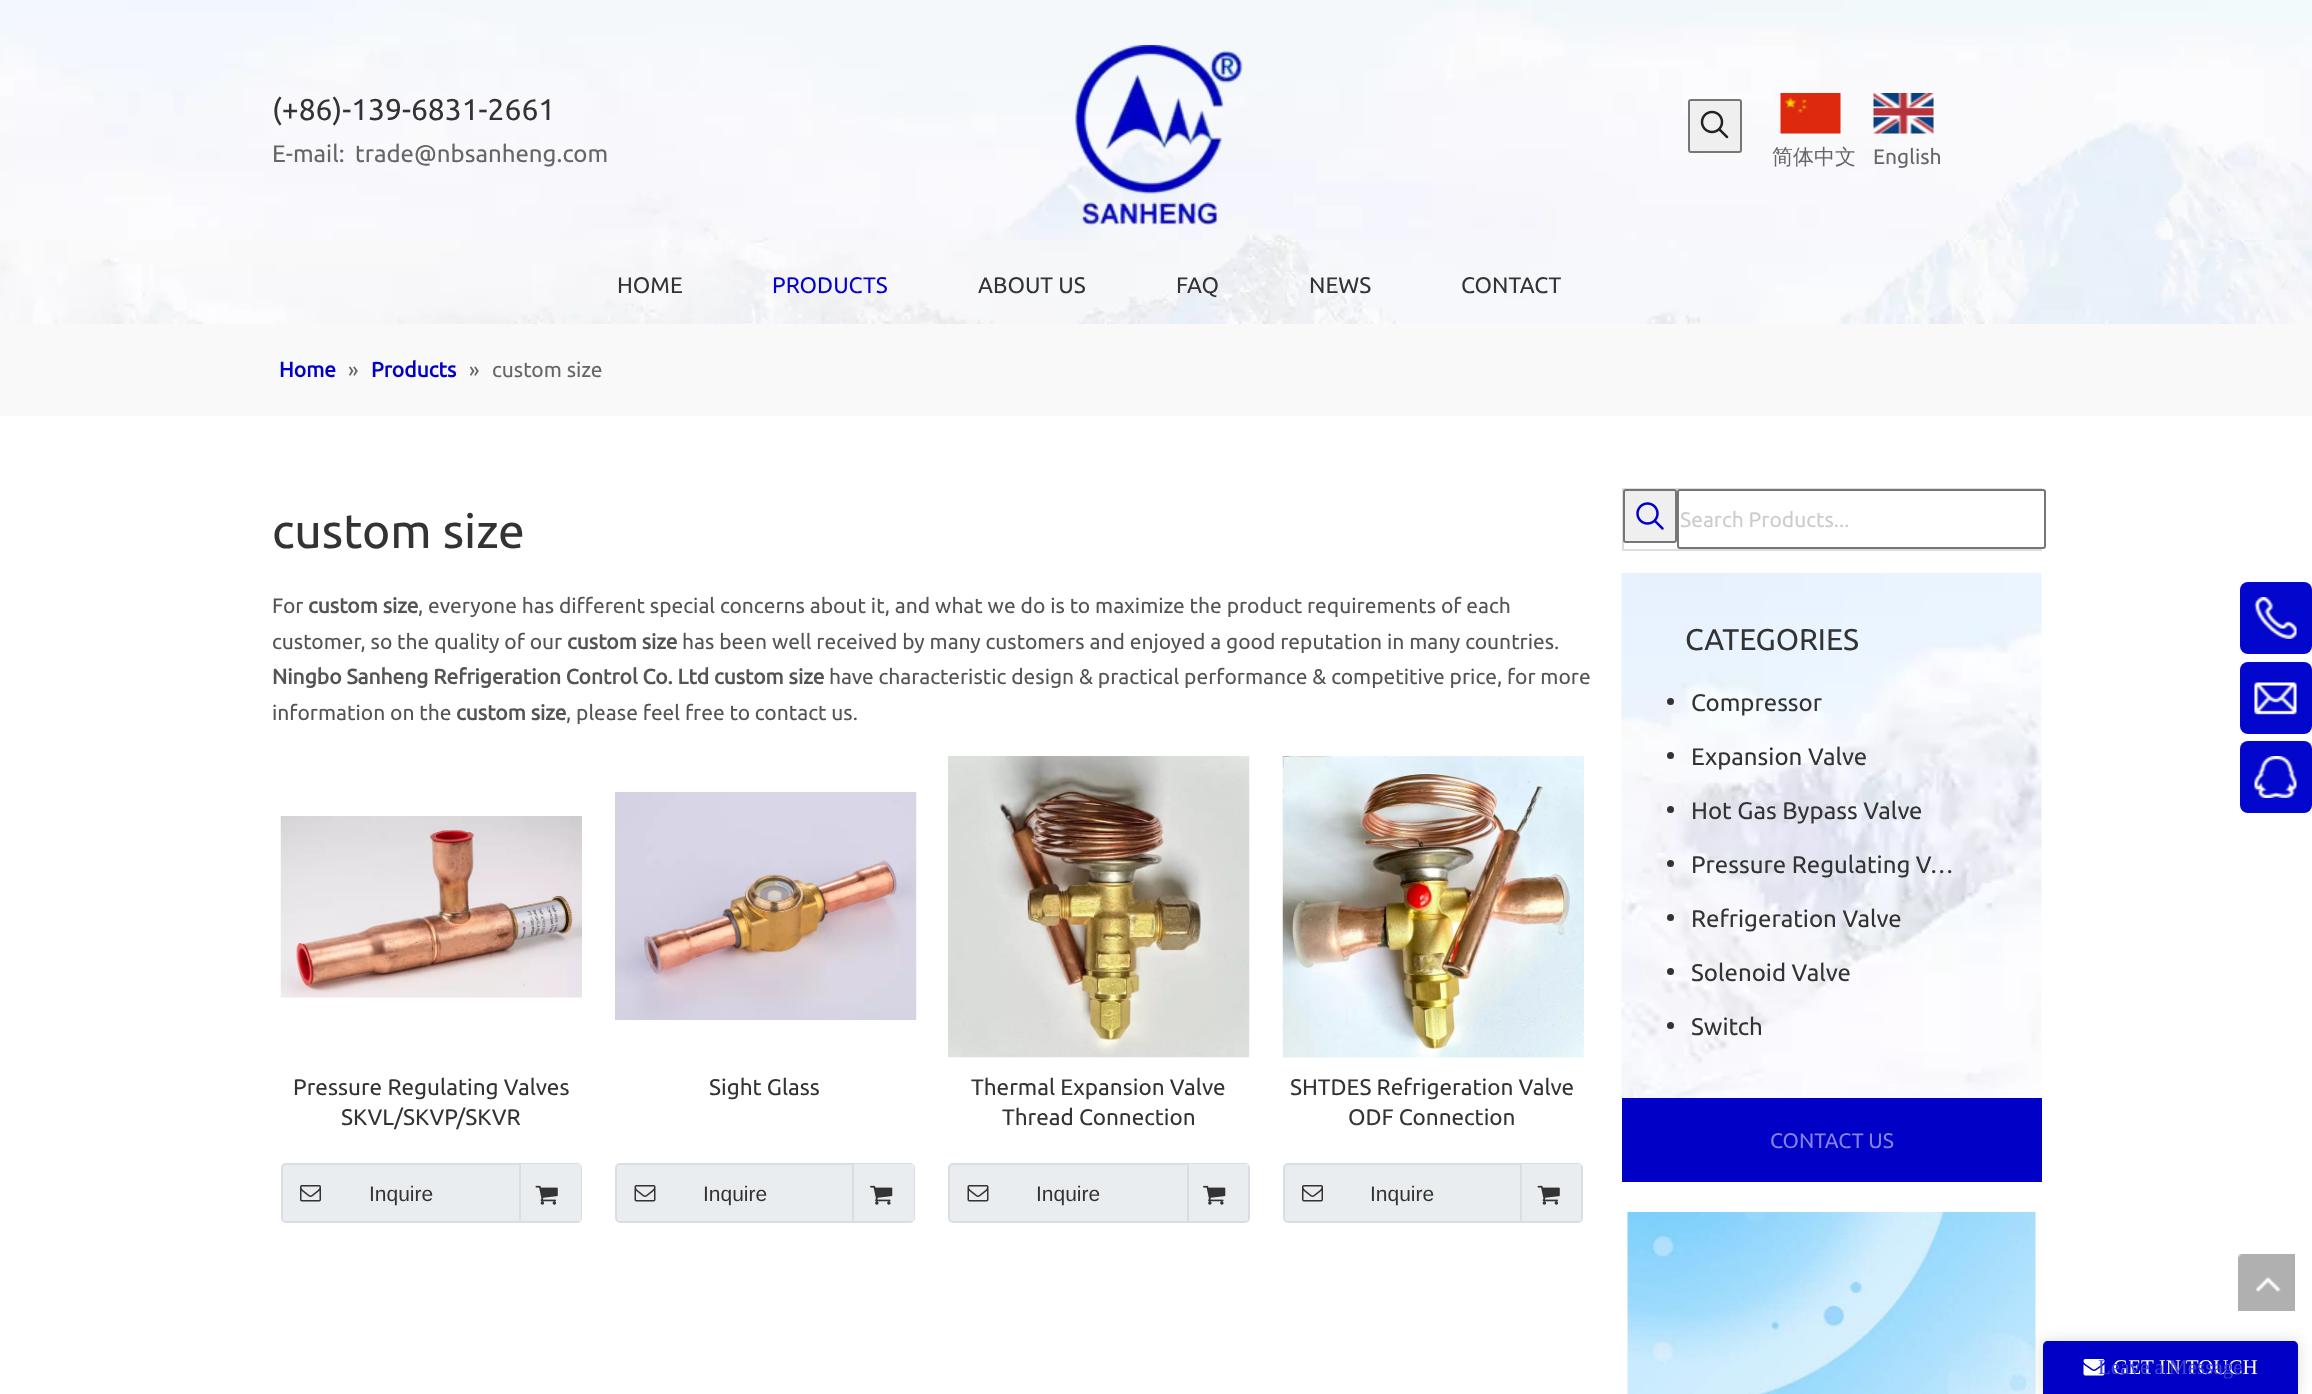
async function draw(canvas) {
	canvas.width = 2312;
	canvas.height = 1394;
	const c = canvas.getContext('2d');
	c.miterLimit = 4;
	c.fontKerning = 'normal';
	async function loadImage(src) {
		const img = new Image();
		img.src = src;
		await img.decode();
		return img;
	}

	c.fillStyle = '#fff';
	c.fillRect(0, 0, 2312, 1394);
	c.drawImage(await loadImage('img1.png'), 0, 0, 2312, 240);
	c.font = '30px Ubuntu';
	c.fillStyle = '#333';
	c.fillText('(+86)-139-6831-2661', 272, 120);
	c.font = '24px Ubuntu';
	c.fillStyle = '#666';
	c.fillText('E-mail:', 272, 162);
	c.fillText('trade@nbsanheng.com', 355, 162);
	c.drawImage(await loadImage('img2.png'), 1075, 45, 168, 180);
	c.fillStyle = '#efefef';
	c.beginPath();
	c.roundRect(1689, 100, 52, 52, 2);
	c.fill();
	c.strokeStyle = '#767676';
	c.lineWidth = 2;
	c.stroke();
	c.drawImage(await loadImage('img3.png'), 1700, 110, 29, 29);
	c.drawImage(await loadImage('img4.png'), 1780, 93, 61, 41);
	c.font = '500 21px WenQuanYi Zen Hei';
	c.fillStyle = '#666';
	c.fillText('简体中文', 1772, 164);
	c.drawImage(await loadImage('img5.png'), 1873, 93, 61, 41);
	c.font = '21px Ubuntu';
	c.fillText('English', 1873, 164);
	c.drawImage(await loadImage('img6.png'), 0, 240, 2312, 84);
	c.font = '22.5px Ubuntu';
	c.fillStyle = '#333';
	c.fillText('HOME', 617, 293);
	c.fillStyle = '#0400d0';
	c.fillText('PRODUCTS', 772, 293);
	c.fillStyle = '#333';
	for (const [text, x, y] of [
		['ABOUT US', 978, 293],
		['FAQ', 1176, 293],
		['NEWS', 1309, 293],
		['CONTACT', 1461, 293],
	]) {
		c.fillText(text, x, y);
	}
	c.fillStyle = '#f9f9f9';
	c.fillRect(0, 324, 2312, 92);
	c.font = 'bold 21px Ubuntu';
	c.fillStyle = '#0100c6';
	c.fillText('Home', 279, 377);
	c.font = '21px Ubuntu';
	c.fillStyle = '#666';
	c.fillText('»', 348, 377);
	c.font = 'bold 21px Ubuntu';
	c.fillStyle = '#0100c6';
	c.fillText('Products', 371, 377);
	c.font = '21px Ubuntu';
	c.fillStyle = '#666';
	c.fillText('»', 469, 377);
	c.fillText('custom size', 492, 377);
	c.font = '48px Ubuntu';
	c.fillStyle = '#333';
	c.fillText('custom size', 272, 548);
	c.font = '21px Ubuntu';
	c.fillStyle = '#545454';
	c.fillText('For', 272, 613);
	c.font = 'bold 21px Ubuntu';
	c.fillText('custom size', 308, 613);
	c.font = '21px Ubuntu';
	c.fillText(', everyone has different special concerns about it, and what we do is to maximize the product requirements of each', 418, 613);
	c.fillText('customer, so the quality of our', 272, 649);
	c.font = 'bold 21px Ubuntu';
	c.fillText('custom size', 567, 649);
	c.font = '21px Ubuntu';
	c.fillText('has been well received by many customers and enjoyed a good reputation in many countries.', 682, 649);
	c.font = 'bold 21px Ubuntu';
	c.fillText('Ningbo Sanheng Refrigeration Control Co. Ltd custom size', 272, 684);
	c.font = '21px Ubuntu';
	c.fillText('have characteristic design & practical performance & competitive price, for more', 829, 684);
	c.fillText('information on the', 272, 720);
	c.font = 'bold 21px Ubuntu';
	c.fillText('custom size', 456, 720);
	c.font = '21px Ubuntu';
	c.fillText(', please feel free to contact us.', 566, 720);
	c.drawImage(await loadImage('img7.png'), 280, 816, 302, 182);
	c.font = '22.5px Ubuntu';
	c.fillStyle = '#333';
	c.fillText('Pressure Regulating Valves', 293, 1095);
	c.fillText('SKVL/SKVP/SKVR', 341, 1125);
	c.fillStyle = '#eaedef';
	c.beginPath();
	c.roundRect(282, 1164, 299, 58, 4);
	c.fill();
	c.strokeStyle = '#d8dde6';
	c.stroke();
	c.drawImage(await loadImage('img8.png'), 300, 1185, 21, 17);
	c.font = '21px Liberation Sans';
	c.fillStyle = '#333';
	c.fillText('Inquire', 369, 1201);
	c.fillStyle = '#eaedef';
	c.fillRect(521, 1164, 60, 57);
	c.fillStyle = '#d8dde6';
	c.fillRect(519, 1164, 2, 57);
	c.drawImage(await loadImage('img9.png'), 535, 1185, 23, 20);
	c.drawImage(await loadImage('img10.png'), 615, 792, 302, 228);
	c.font = '22.5px Ubuntu';
	c.fillStyle = '#333';
	c.fillText('Sight Glass', 709, 1095);
	c.fillStyle = '#eaedef';
	c.beginPath();
	c.roundRect(616, 1164, 298, 58, 4);
	c.fill();
	c.stroke();
	c.drawImage(await loadImage('img11.png'), 634, 1185, 22, 17);
	c.font = '21px Liberation Sans';
	c.fillStyle = '#333';
	c.fillText('Inquire', 703, 1201);
	c.fillStyle = '#eaedef';
	c.fillRect(854, 1164, 60, 57);
	c.fillStyle = '#d8dde6';
	c.fillRect(852, 1164, 2, 57);
	c.drawImage(await loadImage('img12.png'), 870, 1185, 23, 20);
	c.drawImage(await loadImage('img13.png'), 948, 756, 302, 302);
	c.font = '22.5px Ubuntu';
	c.fillStyle = '#333';
	c.fillText('Thermal Expansion Valve', 971, 1095);
	c.fillText('Thread Connection', 1002, 1125);
	c.fillStyle = '#eaedef';
	c.beginPath();
	c.roundRect(949, 1164, 300, 58, 4);
	c.fill();
	c.stroke();
	c.drawImage(await loadImage('img11.png'), 967, 1185, 22, 17);
	c.font = '21px Liberation Sans';
	c.fillStyle = '#333';
	c.fillText('Inquire', 1036, 1201);
	c.fillStyle = '#eaedef';
	c.fillRect(1189, 1164, 59, 57);
	c.fillStyle = '#d8dde6';
	c.fillRect(1187, 1164, 2, 57);
	c.drawImage(await loadImage('img12.png'), 1203, 1185, 23, 20);
	c.drawImage(await loadImage('img14.png'), 1282, 756, 302, 302);
	c.font = '22.5px Ubuntu';
	c.fillStyle = '#333';
	c.fillText('SHTDES Refrigeration Valve', 1290, 1095);
	c.fillText('ODF Connection', 1348, 1125);
	c.fillStyle = '#eaedef';
	c.beginPath();
	c.roundRect(1284, 1164, 298, 58, 4);
	c.fill();
	c.stroke();
	c.drawImage(await loadImage('img8.png'), 1302, 1185, 21, 17);
	c.font = '21px Liberation Sans';
	c.fillStyle = '#333';
	c.fillText('Inquire', 1370, 1201);
	c.fillStyle = '#eaedef';
	c.fillRect(1522, 1164, 59, 57);
	c.fillStyle = '#d8dde6';
	c.fillRect(1520, 1164, 2, 57);
	c.drawImage(await loadImage('img9.png'), 1537, 1185, 23, 20);
	c.strokeStyle = '#ddd';
	c.strokeRect(1623, 489, 418, 61);
	c.fillStyle = '#efefef';
	c.beginPath();
	c.roundRect(1624, 490, 52, 52, 2);
	c.fill();
	c.strokeStyle = '#767676';
	c.stroke();
	c.drawImage(await loadImage('img15.png'), 1636, 502, 28, 28);
	c.fillStyle = '#fff';
	c.beginPath();
	c.roundRect(1678, 490, 367, 58, 2);
	c.fill();
	c.stroke();
	c.font = '21px Ubuntu';
	c.fillStyle = '#ccc';
	c.fillText('Search Products...', 1680, 527);
	c.drawImage(await loadImage('img16.png'), 1621, 573, 421, 525);
	c.font = '30px Ubuntu';
	c.fillStyle = '#333';
	c.fillText('CATEGORIES', 1685, 650);
	c.beginPath();
	c.arc(1670.5, 701.5, 3.5, 0, 2 * Math.PI);
	c.fill();
	c.font = '24px Ubuntu';
	c.fillText('Compressor', 1691, 711);
	c.beginPath();
	c.arc(1670.5, 755.5, 3.5, 0, 2 * Math.PI);
	c.fill();
	c.fillText('Expansion Valve', 1691, 765);
	c.beginPath();
	c.arc(1670.5, 809.5, 3.5, 0, 2 * Math.PI);
	c.fill();
	c.fillText('Hot Gas Bypass Valve', 1691, 819);
	c.beginPath();
	c.arc(1670.5, 863.5, 3.5, 0, 2 * Math.PI);
	c.fill();
	c.fillText('Pressure Regulating V…', 1691, 873);
	c.beginPath();
	c.arc(1670.5, 917.5, 3.5, 0, 2 * Math.PI);
	c.fill();
	c.fillText('Refrigeration Valve', 1691, 927);
	c.beginPath();
	c.arc(1670.5, 971.5, 3.5, 0, 2 * Math.PI);
	c.fill();
	c.fillText('Solenoid Valve', 1691, 981);
	c.beginPath();
	c.arc(1670.5, 1025.5, 3.5, 0, 2 * Math.PI);
	c.fill();
	c.fillText('Switch', 1691, 1035);
	c.fillStyle = '#0100c6';
	c.fillRect(1622, 1098, 420, 84);
	c.font = '21px Ubuntu';
	c.fillStyle = '#8382e3';
	c.fillText('CONTACT US', 1770, 1148);
	c.drawImage(await loadImage('img17.png'), 1627, 1212, 409, 182);
	c.drawImage(await loadImage('img18.png'), 2238, 1254, 57, 57);
	c.fillStyle = '#0306cd';
	c.beginPath();
	c.roundRect(2240, 582, 72, 72, 8);
	c.fill();
	c.drawImage(await loadImage('img19.png'), 2254, 597, 43, 42);
	c.beginPath();
	c.roundRect(2240, 662, 72, 72, 8);
	c.fill();
	c.drawImage(await loadImage('img20.png'), 2254, 682, 43, 33);
	c.beginPath();
	c.roundRect(2240, 741, 72, 72, 8);
	c.fill();
	c.drawImage(await loadImage('img21.png'), 2254, 756, 43, 42);
	c.fillStyle = '#4444442e';
	c.filter = 'blur(7.5px)';
	c.beginPath();
	c.roundRect(2043, 1341, 255, 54, 5);
	c.fill();
	c.filter = 'none';
	c.fillStyle = '#0100c6';
	c.beginPath();
	c.moveTo(2048, 1341);
	c.lineTo(2293, 1341);
	c.bezierCurveTo(2296, 1341, 2298, 1343, 2298, 1346);
	c.lineTo(2298, 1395);
	c.lineTo(2043, 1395);
	c.lineTo(2043, 1346);
	c.bezierCurveTo(2043, 1343, 2045, 1341, 2048, 1341);
	c.closePath();
	c.fill();
	c.drawImage(await loadImage('img22.png'), 2083, 1359, 22, 17);
	c.font = '21px Liberation Serif';
	c.fillStyle = '#fff';
	c.fillText('GET IN TOUCH', 2113, 1374);
	c.fillStyle = '#4343d5';
	c.fillText('Leave a Message', 2098, 1374);
}

draw(document.querySelector('canvas'));
